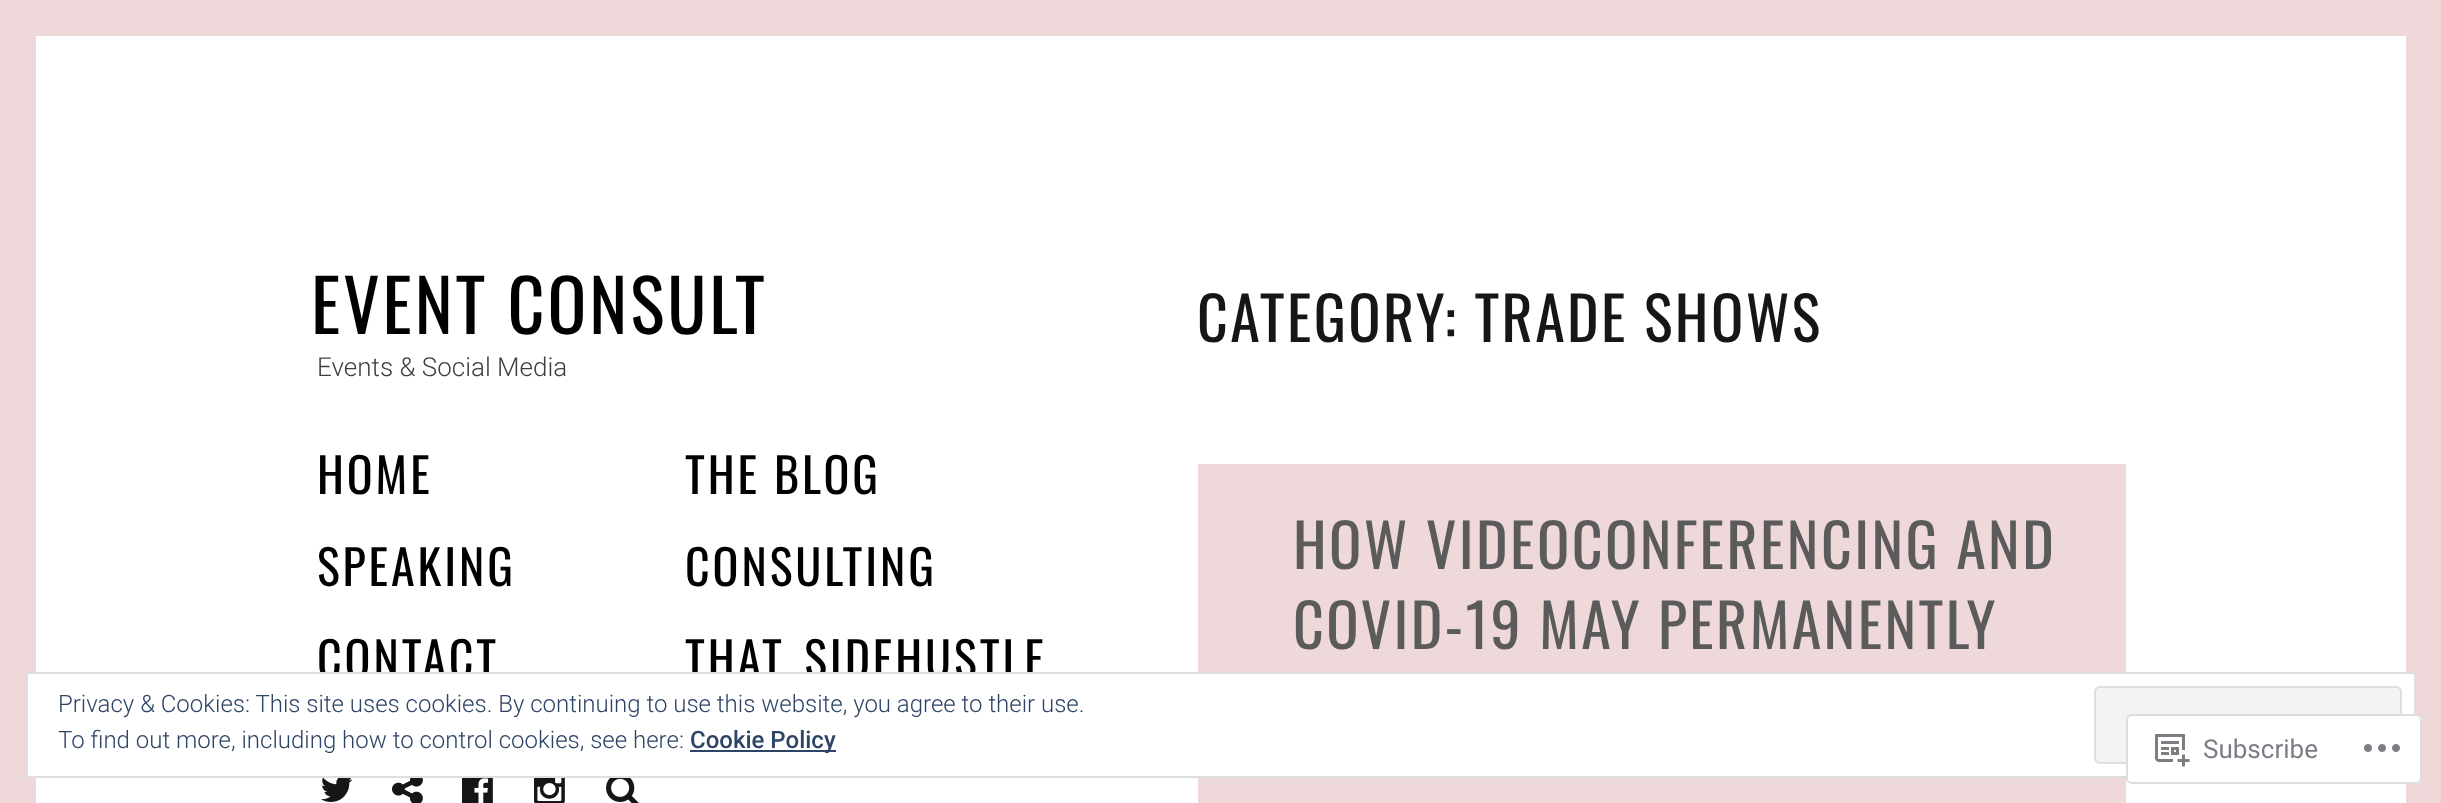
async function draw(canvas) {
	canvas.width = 2441;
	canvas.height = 803;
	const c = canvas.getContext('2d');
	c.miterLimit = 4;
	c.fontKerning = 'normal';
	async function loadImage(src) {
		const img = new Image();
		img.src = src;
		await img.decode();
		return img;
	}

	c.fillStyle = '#fff';
	c.fillRect(0, 0, 2441, 803);
	for (const [x, y, w, h, color] of [
		[36, 0, 2370, 36, '#eed8da'],
		[2406, 0, 35, 803, '#eed8da'],
		[0, 0, 36, 803, '#eed8da'],
	]) {
		c.fillStyle = color;
		c.fillRect(x, y, w, h);
	}
	c.letterSpacing = '2.9px';
	c.font = '72px Oswald';
	c.fillStyle = '#000';
	c.fillText('EVENT CONSULT', 311, 334);
	c.letterSpacing = '0px';
	c.font = '300 26px Roboto';
	c.fillStyle = '#3e3f40';
	c.fillText('Events & Social Media', 317, 376);
	c.letterSpacing = '2.9px';
	c.font = '48px Oswald';
	c.fillStyle = '#000';
	for (const [text, x, y] of [
		['HOME', 317, 494],
		['THE BLOG', 685, 494],
		['SPEAKING', 317, 586],
		['CONSULTING', 685, 586],
		['CONTACT', 317, 678],
		['THAT_SIDEHUSTLE', 685, 678],
	]) {
		c.fillText(text, x, y);
	}
	c.drawImage(await loadImage('img1.png'), 321, 778, 32, 24);
	c.drawImage(await loadImage('img2.png'), 392, 778, 31, 25);
	c.drawImage(await loadImage('img3.png'), 462, 778, 31, 25);
	c.drawImage(await loadImage('img4.png'), 534, 778, 31, 25);
	c.drawImage(await loadImage('img5.png'), 606, 778, 33, 25);
	c.letterSpacing = '2.4px';
	c.font = '60px Oswald';
	c.fillStyle = '#171617';
	c.fillText('CATEGORY: TRADE SHOWS', 1197, 342);
	c.fillStyle = '#eed8da';
	c.fillRect(1198, 464, 928, 339);
	c.fillStyle = '#5b5b5b';
	c.fillText('HOW VIDEOCONFERENCING AND', 1293, 569);
	c.fillText('COVID-19 MAY PERMANENTLY', 1293, 649);
	c.fillStyle = '#fff';
	c.beginPath();
	c.rect(27, 673, 2388, 104);
	c.fill();
	c.strokeStyle = '#dedede';
	c.lineWidth = 2;
	c.stroke();
	c.letterSpacing = '0px';
	c.font = '300 24px Roboto';
	c.fillStyle = '#2e4467';
	c.fillText('Privacy & Cookies: This site uses cookies. By continuing to use this website, you agree to their use.', 58, 712);
	c.fillStyle = '#f3f3f3';
	c.beginPath();
	c.roundRect(2095, 687, 306, 76, 5);
	c.fill();
	c.stroke();
	c.fillStyle = '#2e4467';
	c.fillText('To find out more, including how to control cookies, see here:', 58, 748);
	c.fillRect(690, 750, 146, 2);
	c.font = '500 24px Roboto';
	c.fillText('Cookie Policy', 690, 748);
	c.fillStyle = '#fffffffa';
	c.beginPath();
	c.roundRect(2126, 714, 296, 70, 6);
	c.fill();
	c.beginPath();
	c.roundRect(2127, 715, 294, 68, 5);
	c.strokeStyle = '#dcdcdefa';
	c.stroke();
	c.drawImage(await loadImage('img6.png'), 2155, 734, 35, 33);
	c.font = '26px Roboto';
	c.fillStyle = '#7a7e84';
	c.fillText('Subscribe', 2203, 758);
	c.drawImage(await loadImage('img7.png'), 2364, 744, 36, 8);
}

draw(document.querySelector('canvas'));
